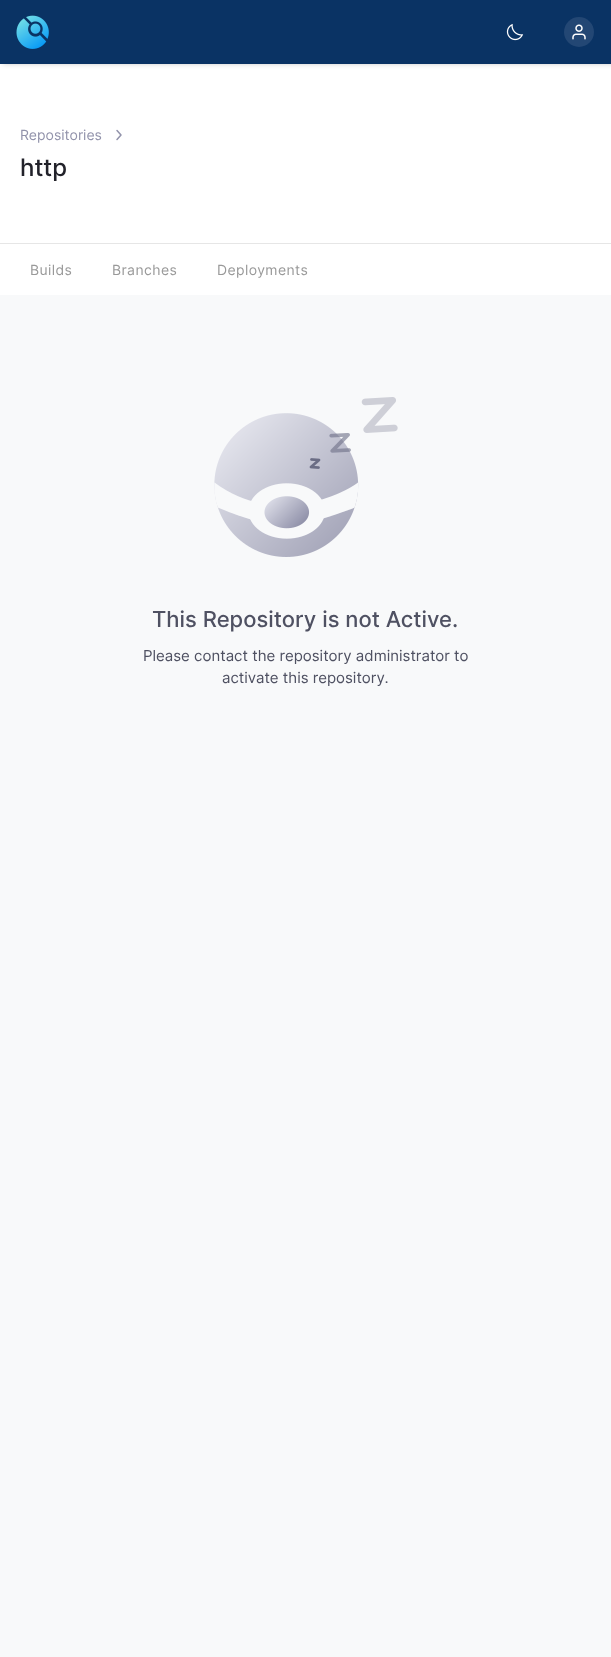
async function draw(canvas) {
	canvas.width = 611;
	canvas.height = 1657;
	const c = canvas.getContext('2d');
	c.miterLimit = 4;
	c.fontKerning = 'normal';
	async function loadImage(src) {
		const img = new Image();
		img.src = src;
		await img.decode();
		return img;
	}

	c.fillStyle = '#f8f9fa';
	c.fillRect(0, 0, 611, 1657);
	c.fillStyle = '#fff';
	c.fillRect(0, 64, 611, 179);
	c.fillStyle = '#00000033';
	c.filter = 'blur(2.5px)';
	c.beginPath();
	c.rect(3, 0, 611, 64);
	c.fill();
	c.filter = 'none';
	c.fillStyle = '#0a3364';
	c.fillRect(0, 0, 611, 64);
	c.drawImage(await loadImage('img1.png'), 16, 15, 33, 34);
	c.drawImage(await loadImage('img2.png'), 506, 23, 18, 18);
	c.fillStyle = '#234774';
	c.beginPath();
	c.arc(579, 32, 15, 0, 2 * Math.PI);
	c.fill();
	c.drawImage(await loadImage('img3.png'), 572, 24, 14, 16);
	c.fillStyle = '#e6e6e6';
	c.fillRect(0, 243, 611, 1);
	c.font = '14px Inter';
	c.fillStyle = '#9293ab';
	c.fillText('Repositories', 20, 140);
	c.beginPath();
	c.moveTo(117, 139.5);
	c.lineTo(121, 135);
	c.lineTo(117, 130.5);
	c.strokeStyle = '#9293ab';
	c.lineWidth = 1.5;
	c.lineCap = 'round';
	c.lineJoin = 'round';
	c.stroke();
	c.font = '500 24px Inter';
	c.fillStyle = '#22222a';
	c.fillText('http', 20, 176);
	c.fillStyle = '#fff';
	c.fillRect(0, 244, 611, 51);
	c.letterSpacing = '0.4px';
	c.font = '14px Inter';
	c.fillStyle = '#999';
	for (const [text, x, y] of [
		['Builds', 30, 275],
		['Branches', 112, 275],
		['Deployments', 217, 275],
	]) {
		c.fillText(text, x, y);
	}
	c.drawImage(await loadImage('img4.png'), 214, 397, 184, 160);
	c.letterSpacing = '0px';
	c.font = '500 22px Inter';
	c.fillStyle = '#4f5162';
	c.fillText('This Repository is not Active.', 152, 627);
	c.font = '15px Inter';
	c.fillText('Please contact the repository administrator to', 143, 661);
	c.fillText('activate this repository.', 222, 683);
}

draw(document.querySelector('canvas'));
